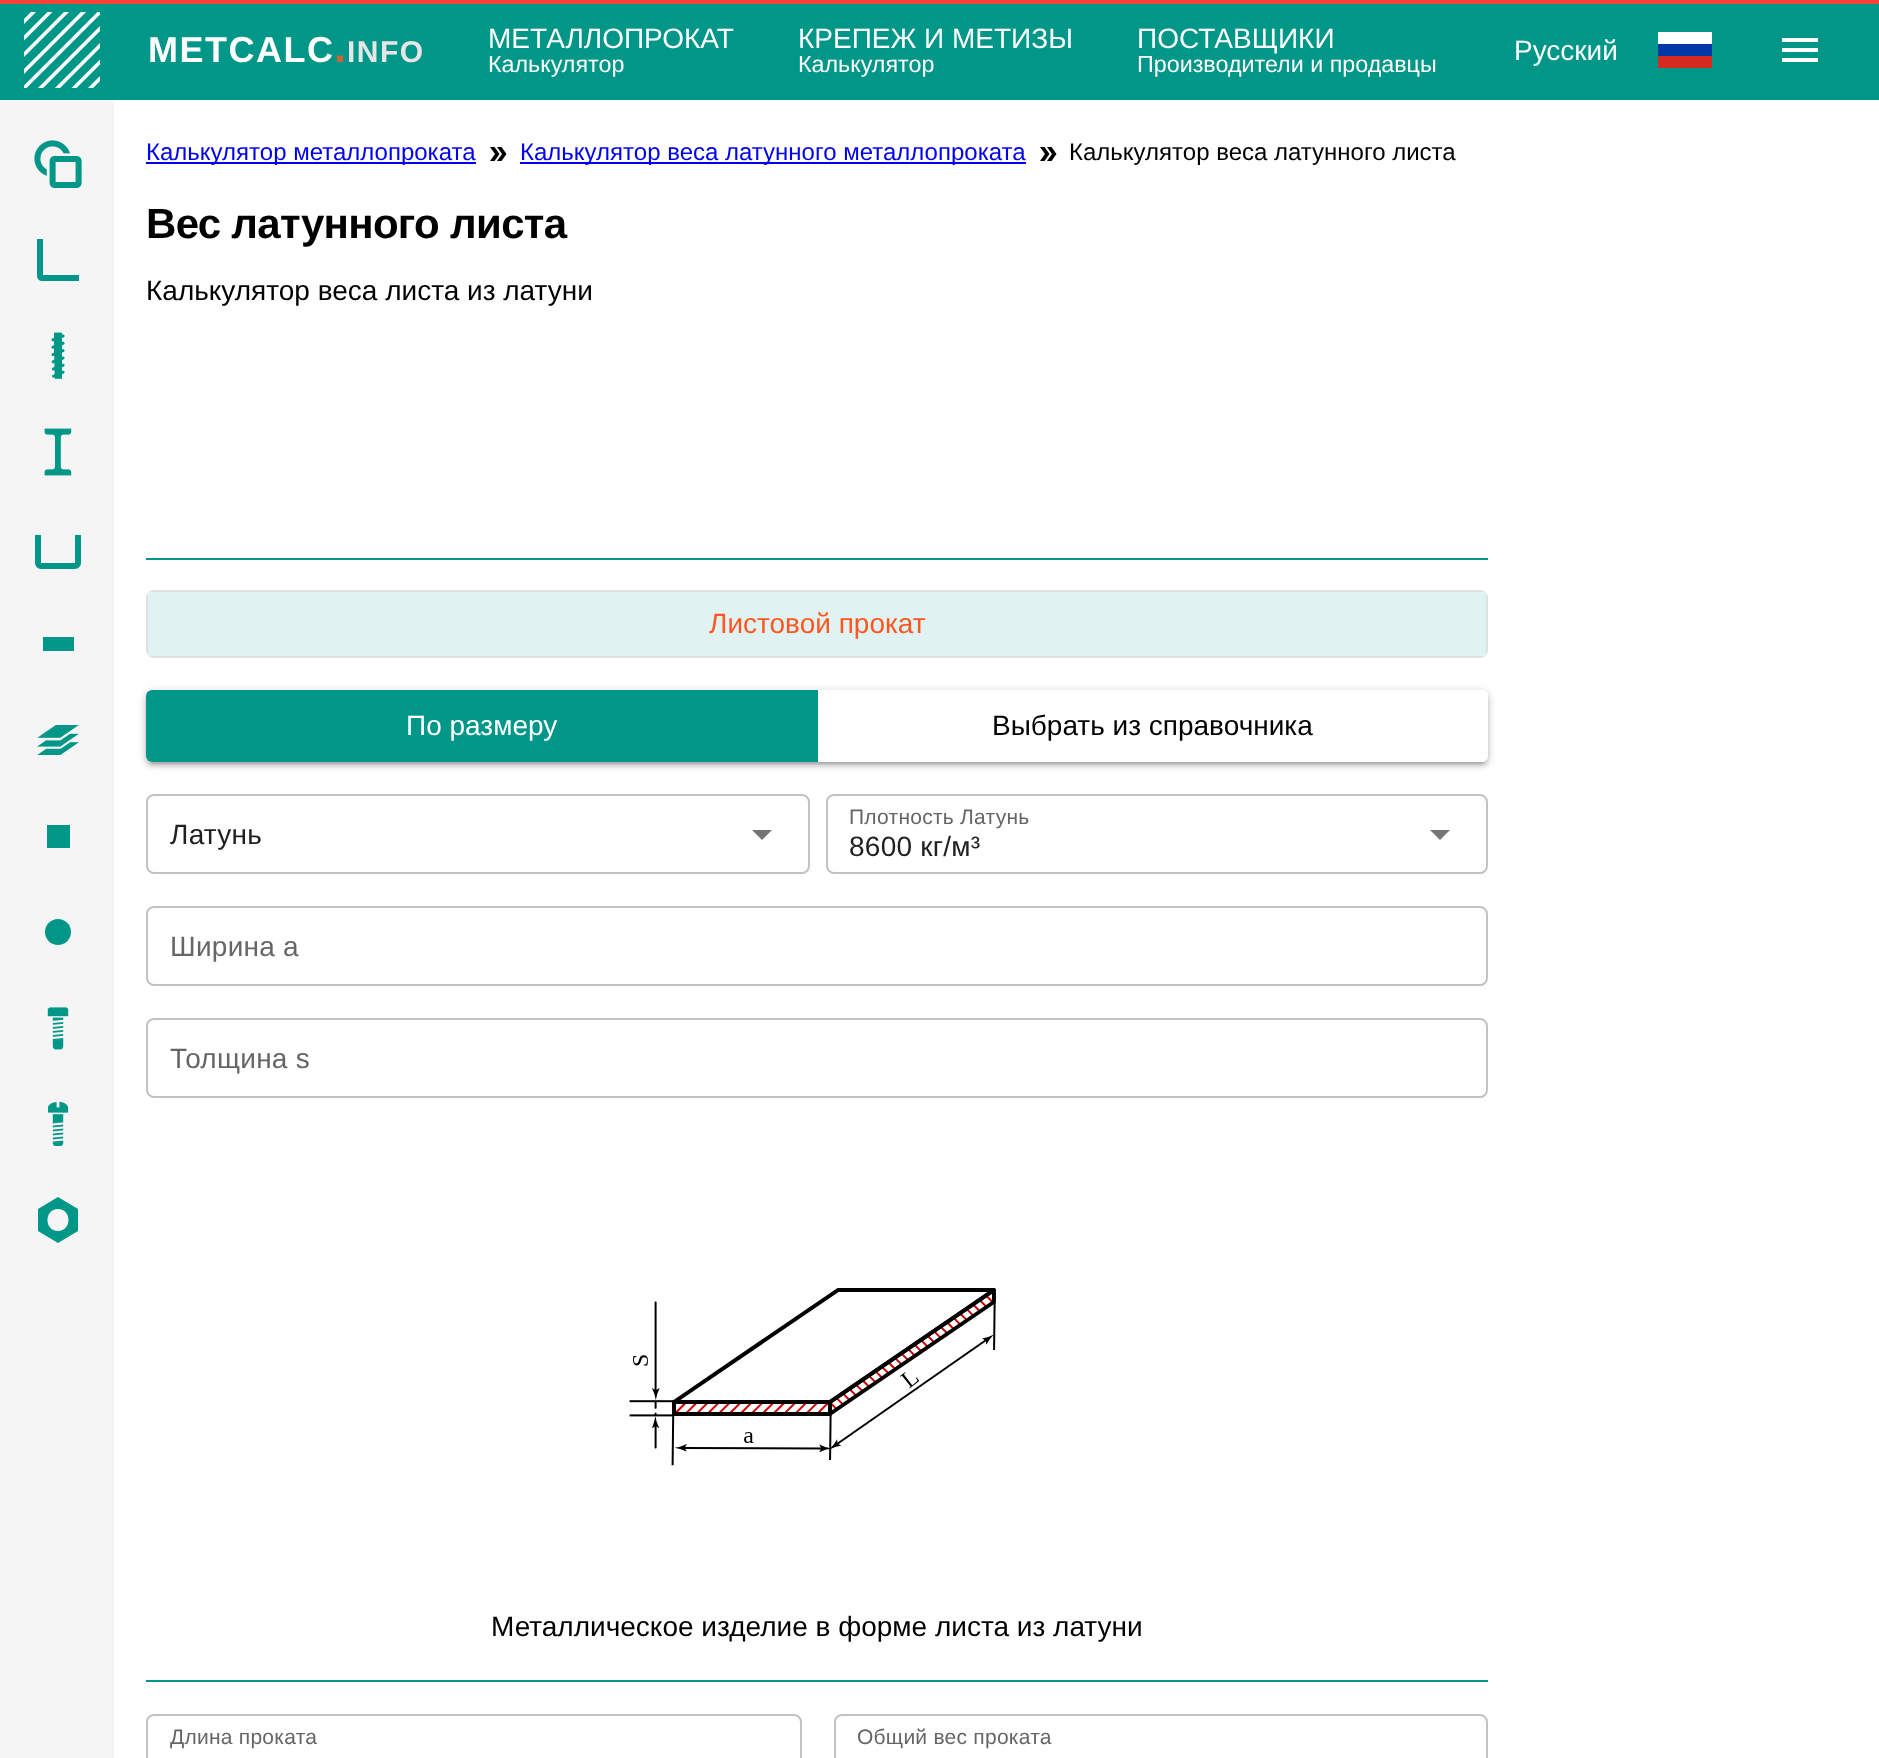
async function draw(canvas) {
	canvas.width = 1879;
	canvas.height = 1758;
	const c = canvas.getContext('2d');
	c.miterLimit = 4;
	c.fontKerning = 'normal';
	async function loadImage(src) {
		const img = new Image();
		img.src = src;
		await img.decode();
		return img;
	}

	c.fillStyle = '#fff';
	c.fillRect(0, 0, 1879, 1758);
	c.fillStyle = '#f44336';
	c.fillRect(0, 0, 1879, 4);
	c.fillStyle = '#009688';
	c.fillRect(0, 4, 1879, 96);
	c.save();
	c.beginPath();
	c.rect(24, 12, 76, 76);
	c.clip();
	c.beginPath();
	c.moveTo(21.5, 90.5);
	c.lineTo(102.5, 9.5);
	c.strokeStyle = '#fff';
	c.lineWidth = 3.6;
	c.stroke();
	c.beginPath();
	c.moveTo(21.5, 57);
	c.lineTo(69, 9.5);
	c.moveTo(21.5, 40.5);
	c.lineTo(52.5, 9.5);
	c.moveTo(21.5, 24);
	c.lineTo(36, 9.5);
	c.moveTo(21.5, 74);
	c.lineTo(86, 9.5);
	c.stroke();
	c.beginPath();
	c.moveTo(38, 90.5);
	c.lineTo(102.5, 26);
	c.moveTo(55, 90.5);
	c.lineTo(102.5, 43);
	c.moveTo(71.5, 90.5);
	c.lineTo(102.5, 59.5);
	c.moveTo(88, 90.5);
	c.lineTo(102.5, 76);
	c.stroke();
	c.restore();
	c.letterSpacing = '1.5px';
	c.font = 'bold 36px Liberation Sans';
	c.fillStyle = '#fff';
	c.fillText('METCALC', 148, 62);
	c.font = 'bold 43px Liberation Sans';
	c.fillStyle = '#cc6436';
	c.fillText('.', 334, 62);
	c.font = 'bold 30px Liberation Sans';
	c.fillStyle = '#e6e6e6';
	c.fillText('INFO', 347, 62);
	c.letterSpacing = '0px';
	c.font = '28px Liberation Sans';
	c.fillStyle = '#fff';
	c.fillText('МЕТАЛЛОПРОКАТ', 488, 48);
	c.font = '23.3px Liberation Sans';
	c.fillText('Калькулятор', 488, 72);
	c.font = '28px Liberation Sans';
	c.fillText('КРЕПЕЖ И МЕТИЗЫ', 798, 48);
	c.font = '23.3px Liberation Sans';
	c.fillText('Калькулятор', 798, 72);
	c.font = '28px Liberation Sans';
	c.fillText('ПОСТАВЩИКИ', 1137, 48);
	c.font = '23.3px Liberation Sans';
	c.fillText('Производители и продавцы', 1137, 72);
	c.font = '28px Liberation Sans';
	c.fillText('Русский', 1514, 60);
	for (const [x, y, w, h, color] of [
		[1658, 32, 54, 12, '#fff'],
		[1658, 56, 54, 12, '#d52b1e'],
		[1658, 44, 54, 12, '#0039a6'],
	]) {
		c.fillStyle = color;
		c.fillRect(x, y, w, h);
	}
	c.fillStyle = '#fff';
	c.beginPath();
	c.moveTo(1782, 62);
	c.lineTo(1818, 62);
	c.lineTo(1818, 58);
	c.lineTo(1782, 58);
	c.closePath();
	c.moveTo(1782, 52);
	c.lineTo(1818, 52);
	c.lineTo(1818, 48);
	c.lineTo(1782, 48);
	c.closePath();
	c.moveTo(1782, 38);
	c.lineTo(1782, 42);
	c.lineTo(1818, 42);
	c.lineTo(1818, 38);
	c.closePath();
	c.fill();
	c.fillStyle = '#f5f5f5';
	c.fillRect(0, 100, 114, 1658);
	c.drawImage(await loadImage('img1.png'), 34, 140, 48, 48);
	c.fillStyle = '#009688';
	c.beginPath();
	c.moveTo(79, 281);
	c.lineTo(43, 281);
	c.bezierCurveTo(39, 281, 37, 279, 37, 275);
	c.lineTo(37, 239);
	c.lineTo(43, 239);
	c.lineTo(43, 275);
	c.lineTo(79, 275);
	c.closePath();
	c.fill();
	c.drawImage(await loadImage('img2.png'), 51, 332, 14, 47);
	c.drawImage(await loadImage('img3.png'), 44, 428, 28, 48);
	c.beginPath();
	c.moveTo(75, 569);
	c.lineTo(41, 569);
	c.bezierCurveTo(38, 569, 35, 566, 35, 563);
	c.lineTo(35, 535);
	c.lineTo(41, 535);
	c.lineTo(41, 563);
	c.lineTo(75, 563);
	c.lineTo(75, 535);
	c.lineTo(81, 535);
	c.lineTo(81, 563);
	c.bezierCurveTo(81, 566, 78, 569, 75, 569);
	c.closePath();
	c.fill();
	c.fillRect(43, 637, 31, 14);
	c.drawImage(await loadImage('img4.png'), 37, 725, 42, 30);
	c.fillRect(47, 825, 23, 23);
	c.beginPath();
	c.arc(58, 932, 13, 0, 2 * Math.PI);
	c.fill();
	c.drawImage(await loadImage('img5.png'), 47, 1007, 22, 43);
	c.drawImage(await loadImage('img6.png'), 48, 1101, 21, 45);
	c.beginPath();
	c.moveTo(58, 1197);
	c.lineTo(38, 1209);
	c.lineTo(38, 1231);
	c.lineTo(58, 1243);
	c.lineTo(78, 1231);
	c.lineTo(78, 1209);
	c.closePath();
	c.moveTo(58, 1231);
	c.bezierCurveTo(44, 1231, 44, 1209, 58, 1209);
	c.bezierCurveTo(72, 1209, 72, 1231, 58, 1231);
	c.closePath();
	c.fill();
	c.fillStyle = '#00e';
	c.fillRect(146, 162, 330, 2);
	c.font = '24px Liberation Sans';
	c.fillText('Калькулятор металлопроката', 146, 160);
	c.drawImage(await loadImage('img7.png'), 490, 147, 17, 14);
	c.fillRect(520, 162, 506, 2);
	c.fillText('Калькулятор веса латунного металлопроката', 520, 160);
	c.drawImage(await loadImage('img7.png'), 1040, 147, 17, 14);
	c.fillStyle = '#000';
	c.fillText('Калькулятор веса латунного листа', 1069, 160);
	c.letterSpacing = '-0.7px';
	c.font = 'bold 42px Liberation Sans';
	c.fillText('Вес латунного листа', 146, 238);
	c.letterSpacing = '0px';
	c.font = '28px Liberation Sans';
	c.fillText('Калькулятор веса листа из латуни', 146, 300);
	c.fillStyle = '#009688';
	c.fillRect(146, 558, 1342, 2);
	c.beginPath();
	c.roundRect(147, 591, 1340, 66, 7);
	c.strokeStyle = '#e0e0e0';
	c.lineWidth = 2;
	c.stroke();
	c.fillStyle = '#e0f2f1';
	c.fillRect(148, 592, 1338, 64);
	c.fillStyle = '#ff5722';
	c.fillText('Листовой прокат', 709, 633);
	c.save();
	c.beginPath();
	c.rect(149, 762, 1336, 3);
	c.clip();
	c.fillStyle = '#0000001f';
	c.filter = 'blur(1px)';
	c.beginPath();
	c.roundRect(150, 700, 1334, 64, 2);
	c.fill();
	c.filter = 'none';
	c.restore();
	c.save();
	c.beginPath();
	c.moveTo(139, 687);
	c.lineTo(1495, 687);
	c.lineTo(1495, 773);
	c.lineTo(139, 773);
	c.closePath();
	c.moveTo(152, 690);
	c.lineTo(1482, 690);
	c.bezierCurveTo(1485.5, 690, 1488, 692.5, 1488, 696);
	c.lineTo(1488, 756);
	c.bezierCurveTo(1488, 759.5, 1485.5, 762, 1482, 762);
	c.lineTo(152, 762);
	c.bezierCurveTo(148.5, 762, 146, 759.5, 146, 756);
	c.lineTo(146, 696);
	c.bezierCurveTo(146, 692.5, 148.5, 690, 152, 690);
	c.closePath();
	c.clip('evenodd');
	c.fillStyle = '#00000024';
	c.filter = 'blur(2px)';
	c.beginPath();
	c.roundRect(146, 694, 1342, 72, 6);
	c.fill();
	c.filter = 'none';
	c.restore();
	c.save();
	c.beginPath();
	c.moveTo(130, 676);
	c.lineTo(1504, 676);
	c.lineTo(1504, 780);
	c.lineTo(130, 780);
	c.closePath();
	c.moveTo(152, 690);
	c.lineTo(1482, 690);
	c.bezierCurveTo(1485.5, 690, 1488, 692.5, 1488, 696);
	c.lineTo(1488, 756);
	c.bezierCurveTo(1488, 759.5, 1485.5, 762, 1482, 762);
	c.lineTo(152, 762);
	c.bezierCurveTo(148.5, 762, 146, 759.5, 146, 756);
	c.lineTo(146, 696);
	c.bezierCurveTo(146, 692.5, 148.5, 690, 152, 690);
	c.closePath();
	c.clip('evenodd');
	c.fillStyle = '#00000033';
	c.filter = 'blur(5px)';
	c.beginPath();
	c.roundRect(146, 692, 1342, 72, 6);
	c.fill();
	c.filter = 'none';
	c.restore();
	c.fillStyle = '#009688';
	c.beginPath();
	c.roundRect(146, 690, 672, 72, [6, 0, 0, 6]);
	c.fill();
	c.fillStyle = '#fff';
	c.fillText('По размеру', 406, 735);
	c.fillStyle = '#000';
	c.fillText('Выбрать из справочника', 992, 735);
	c.beginPath();
	c.roundRect(147, 795, 662, 78, 7);
	c.strokeStyle = '#c2c2c2';
	c.stroke();
	c.letterSpacing = '0.25px';
	c.fillStyle = '#212121';
	c.fillText('Латунь', 170, 844);
	c.fillStyle = '#757575';
	c.beginPath();
	c.moveTo(752, 830);
	c.lineTo(762, 840);
	c.lineTo(772, 830);
	c.closePath();
	c.fill();
	c.beginPath();
	c.roundRect(827, 795, 660, 78, 7);
	c.stroke();
	c.font = '21px Liberation Sans';
	c.fillStyle = '#666';
	c.fillText('Плотность Латунь', 849, 824);
	c.font = '28px Liberation Sans';
	c.fillStyle = '#212121';
	c.fillText('8600 кг/м³', 849, 856);
	c.fillStyle = '#757575';
	c.beginPath();
	c.moveTo(1430, 830);
	c.lineTo(1440, 840);
	c.lineTo(1450, 830);
	c.closePath();
	c.fill();
	c.beginPath();
	c.roundRect(147, 907, 1340, 78, 7);
	c.stroke();
	c.fillStyle = '#666';
	c.fillText('Ширина a', 170, 956);
	c.beginPath();
	c.roundRect(147, 1019, 1340, 78, 7);
	c.stroke();
	c.fillText('Толщина s', 170, 1068);
	c.drawImage(await loadImage('img8.png'), 629, 1288, 367, 178);
	c.letterSpacing = '0px';
	c.fillStyle = '#000';
	c.fillText('Металлическое изделие в форме листа из латуни', 491, 1636);
	c.fillStyle = '#009688';
	c.fillRect(146, 1680, 1342, 2);
	c.beginPath();
	c.roundRect(147, 1715, 654, 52, 7);
	c.stroke();
	c.letterSpacing = '0.25px';
	c.font = '21px Liberation Sans';
	c.fillStyle = '#666';
	c.fillText('Длина проката', 170, 1744);
	c.beginPath();
	c.roundRect(835, 1715, 652, 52, 7);
	c.stroke();
	c.fillText('Общий вес проката', 857, 1744);
}

draw(document.querySelector('canvas'));
